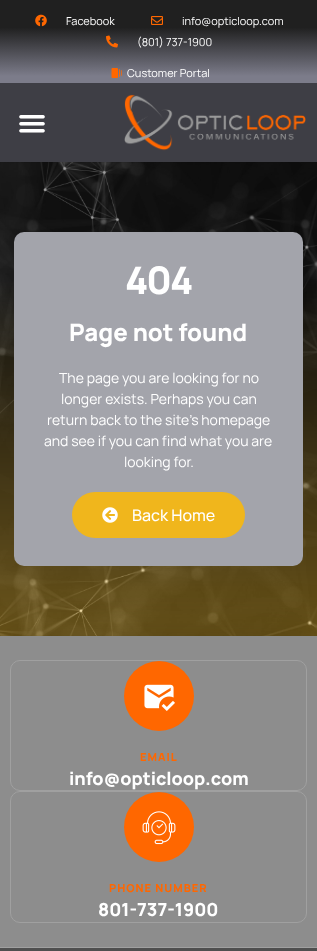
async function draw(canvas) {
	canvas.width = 317;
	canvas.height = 951;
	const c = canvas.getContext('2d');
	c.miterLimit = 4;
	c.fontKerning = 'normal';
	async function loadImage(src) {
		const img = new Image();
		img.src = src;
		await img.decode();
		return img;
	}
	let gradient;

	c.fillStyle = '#fff';
	c.fillRect(0, 0, 317, 951);
	gradient = c.createLinearGradient(159, 0, 159, 162);
	gradient.addColorStop(0.17, '#202020');
	gradient.addColorStop(0.47, '#7c7c8a');
	c.fillStyle = gradient;
	c.fillRect(0, 0, 317, 83);
	c.drawImage(await loadImage('img1.png'), 35, 14, 12, 13);
	c.font = '11px Manrope';
	c.fillStyle = '#fff';
	c.fillText('Facebook', 66, 25);
	c.drawImage(await loadImage('img2.png'), 151, 16, 12, 9);
	c.fillText('info@opticloop.com', 182, 25);
	c.drawImage(await loadImage('img3.png'), 106, 35, 12, 13);
	c.fillText('(801) 737-1900', 137, 46);
	c.drawImage(await loadImage('img4.png'), 111, 68, 11, 10);
	c.fillText('Customer Portal', 127, 77);
	c.fillStyle = '#3e3e45';
	c.fillRect(0, 83, 317, 79);
	c.drawImage(await loadImage('img5.png'), 19, 115, 26, 18);
	c.drawImage(await loadImage('img6.png'), 124, 94, 182, 57);
	c.drawImage(await loadImage('img7.png'), 0, 162, 317, 474);
	c.fillStyle = '#a3a4ab';
	c.beginPath();
	c.roundRect(14, 232, 289, 334, 10);
	c.fill();
	c.letterSpacing = '-2px';
	c.font = '800 38px Manrope';
	c.fillStyle = '#fff';
	c.fillText('404', 125, 294);
	c.letterSpacing = '0px';
	c.font = '800 24px Manrope';
	c.fillText('Page not found', 69, 341);
	c.font = '14px Manrope';
	for (const [text, x, y] of [
		['The page you are looking for no', 59, 383],
		['longer exists. Perhaps you can', 61, 404],
		['return back to the site’s homepage', 47, 425],
		['and see if you can find what you are', 44, 446],
		['looking for.', 124, 467],
	]) {
		c.fillText(text, x, y);
	}
	c.fillStyle = '#f0b61c';
	c.beginPath();
	c.roundRect(72, 492, 173, 46, 23);
	c.fill();
	c.drawImage(await loadImage('img8.png'), 102, 507, 16, 16);
	c.font = '500 16px Manrope';
	c.fillStyle = '#fff';
	c.fillText('Back Home', 132, 521);
	c.fillStyle = '#0000004d';
	c.filter = 'blur(30px)';
	c.beginPath();
	c.rect(0, 646, 317, 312);
	c.fill();
	c.filter = 'none';
	c.fillStyle = '#8d8d8d';
	c.fillRect(0, 636, 317, 311);
	c.fillStyle = '#a0a0a0';
	c.fillRect(0, 947, 317, 1);
	c.beginPath();
	c.roundRect(10.5, 660.5, 296, 130, 9.5);
	c.strokeStyle = '#a0a0a0';
	c.stroke();
	c.fillStyle = '#ff6700';
	c.beginPath();
	c.arc(159, 696, 35, 0, 2 * Math.PI);
	c.fill();
	c.drawImage(await loadImage('img9.png'), 144, 684, 31, 27);
	c.letterSpacing = '1px';
	c.font = '800 11px Manrope';
	c.fillText('EMAIL', 140, 761);
	c.letterSpacing = '0px';
	c.font = '800 18px Manrope';
	c.fillStyle = '#fff';
	c.fillText('info@opticloop.com', 69, 785);
	c.beginPath();
	c.roundRect(10.5, 791.5, 296, 131, 9.5);
	c.stroke();
	c.fillStyle = '#ff6700';
	c.beginPath();
	c.arc(159, 827, 35, 0, 2 * Math.PI);
	c.fill();
	c.drawImage(await loadImage('img10.png'), 142, 811, 34, 34);
	c.letterSpacing = '1px';
	c.font = '800 11px Manrope';
	c.fillText('PHONE NUMBER', 109, 892);
	c.letterSpacing = '0px';
	c.font = '800 18px Manrope';
	c.fillStyle = '#fff';
	c.fillText('801-737-1900', 98, 916);
	c.fillStyle = '#4f4f4f';
	c.fillRect(0, 948, 317, 3);
}

draw(document.querySelector('canvas'));
